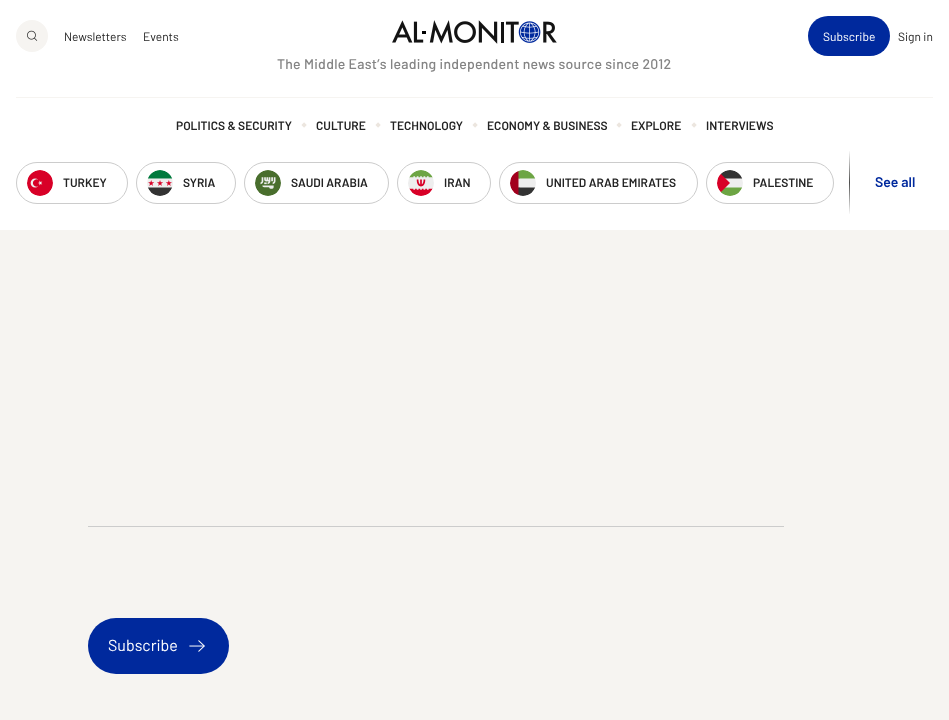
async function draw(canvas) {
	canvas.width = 949;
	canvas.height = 720;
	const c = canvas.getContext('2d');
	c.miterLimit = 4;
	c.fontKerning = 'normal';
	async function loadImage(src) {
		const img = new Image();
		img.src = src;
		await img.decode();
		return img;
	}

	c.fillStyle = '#f6f4f1';
	c.fillRect(0, 0, 949, 720);
	c.fillStyle = '#fff';
	c.fillRect(0, 0, 949, 230);
	c.fillStyle = '#f6f4f1';
	c.beginPath();
	c.arc(32, 36, 16, 0, 2 * Math.PI);
	c.fill();
	c.drawImage(await loadImage('img1.png'), 27, 30, 11, 11);
	c.font = '12px Barlow';
	c.fillStyle = '#242424';
	c.fillText('Newsletters', 64, 41);
	c.fillText('Events', 143, 41);
	c.drawImage(await loadImage('img2.png'), 392, 20, 165, 24);
	c.fillStyle = '#00299d';
	c.beginPath();
	c.roundRect(808, 16, 82, 40, 20);
	c.fill();
	c.fillStyle = '#fff';
	c.fillText('Subscribe', 823, 41);
	c.fillStyle = '#242424';
	c.fillText('Sign in', 898, 41);
	c.fillStyle = '#f6f4f1';
	c.fillRect(16, 97, 917, 1);
	c.letterSpacing = '0.28px';
	c.font = '500 14px Barlow';
	c.fillStyle = '#848484';
	c.fillText('The Middle Eastʼs leading independent news source since 2012', 277, 69);
	c.letterSpacing = '0px';
	c.font = '600 12px Barlow';
	c.fillStyle = '#242424';
	c.fillText('POLITICS & SECURITY', 176, 130);
	c.drawImage(await loadImage('img3.png'), 301, 122, 6, 6);
	c.fillText('CULTURE', 316, 130);
	c.drawImage(await loadImage('img3.png'), 375, 122, 6, 6);
	c.fillText('TECHNOLOGY', 390, 130);
	c.drawImage(await loadImage('img3.png'), 472, 122, 6, 6);
	c.fillText('ECONOMY & BUSINESS', 487, 130);
	c.drawImage(await loadImage('img3.png'), 616, 122, 6, 6);
	c.fillText('EXPLORE', 631, 130);
	c.drawImage(await loadImage('img3.png'), 691, 122, 6, 6);
	c.fillText('INTERVIEWS', 706, 130);
	c.drawImage(await loadImage('img4.png'), 849, 151, 1, 63);
	c.beginPath();
	c.roundRect(16.5, 162.5, 111, 41, 20.5);
	c.strokeStyle = '#ccc';
	c.stroke();
	c.drawImage(await loadImage('img5.png'), 27, 170, 26, 26);
	c.fillText('TURKEY', 63, 187);
	c.beginPath();
	c.roundRect(136.5, 162.5, 99, 41, 20.5);
	c.stroke();
	c.drawImage(await loadImage('img6.png'), 147, 170, 26, 26);
	c.fillText('SYRIA', 183, 187);
	c.beginPath();
	c.roundRect(244.5, 162.5, 144, 41, 20.5);
	c.stroke();
	c.drawImage(await loadImage('img7.png'), 255, 170, 26, 26);
	c.fillText('SAUDI ARABIA', 291, 187);
	c.beginPath();
	c.roundRect(397.5, 162.5, 93, 41, 20.5);
	c.stroke();
	c.drawImage(await loadImage('img8.png'), 408, 170, 26, 26);
	c.fillText('IRAN', 444, 187);
	c.beginPath();
	c.roundRect(499.5, 162.5, 198, 41, 20.5);
	c.stroke();
	c.drawImage(await loadImage('img9.png'), 510, 170, 26, 26);
	c.fillText('UNITED ARAB EMIRATES', 546, 187);
	c.beginPath();
	c.roundRect(706.5, 162.5, 127, 41, 20.5);
	c.stroke();
	c.drawImage(await loadImage('img10.png'), 717, 170, 26, 26);
	c.fillText('PALESTINE', 753, 187);
	c.font = '600 14px Barlow';
	c.fillStyle = '#00299d';
	c.fillText('See all', 875, 187);
	c.fillStyle = '#ccc';
	c.fillRect(88, 526, 696, 1);
	c.fillStyle = '#00299d';
	c.beginPath();
	c.roundRect(88, 618, 141, 56, 28);
	c.fill();
	c.font = '16px Barlow';
	c.fillStyle = '#fff';
	c.fillText('Subscribe', 108, 651);
	c.drawImage(await loadImage('img11.png'), 189, 640, 16, 12);
}

draw(document.querySelector('canvas'));
